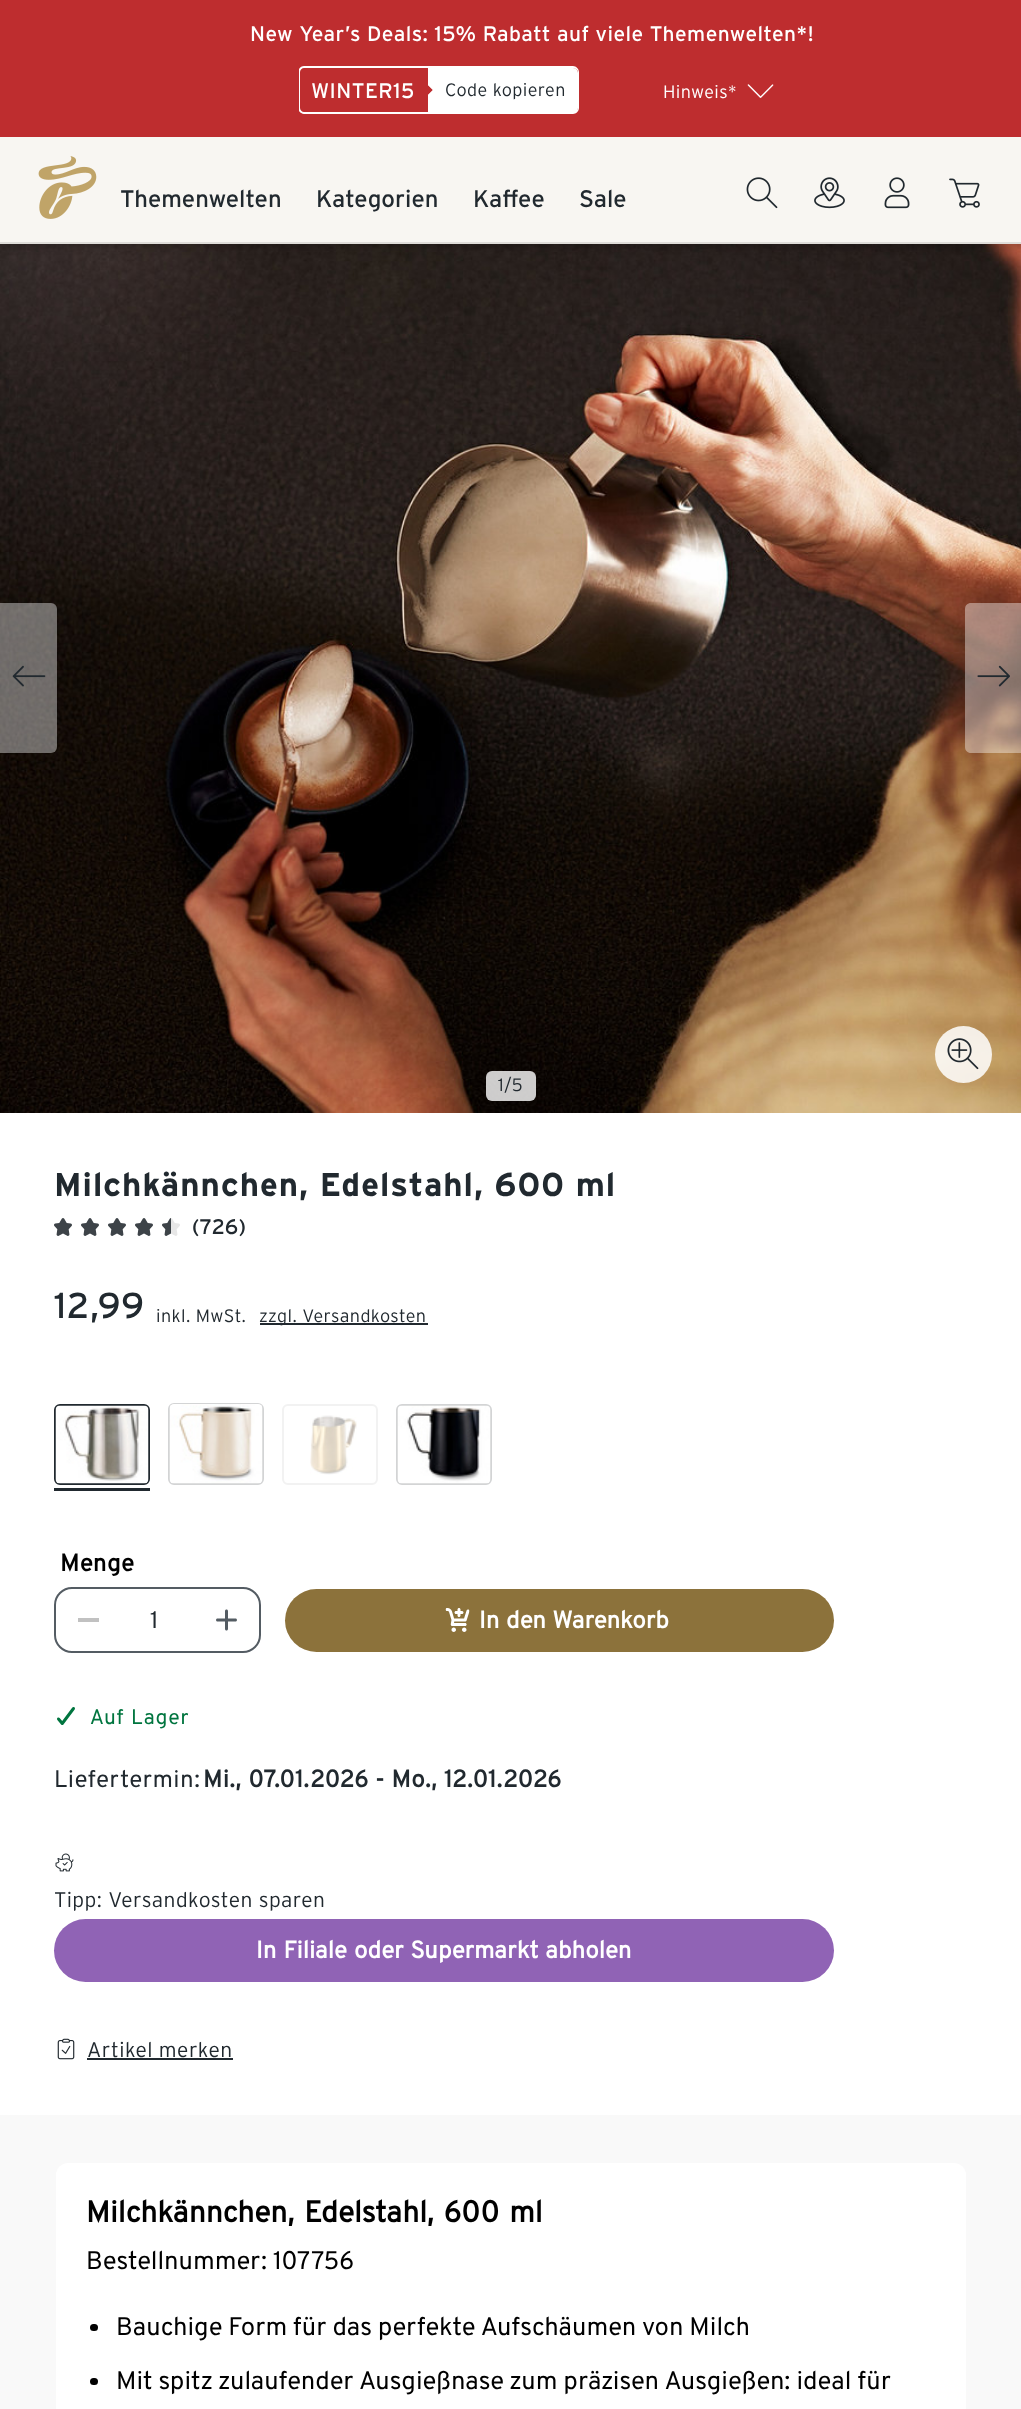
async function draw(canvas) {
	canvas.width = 1021;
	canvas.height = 2409;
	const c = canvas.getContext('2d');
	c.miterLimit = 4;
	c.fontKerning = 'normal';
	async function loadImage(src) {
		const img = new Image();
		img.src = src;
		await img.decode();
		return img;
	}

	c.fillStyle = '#fff';
	c.fillRect(0, 0, 1021, 2409);
	c.drawImage(await loadImage('img7.png'), 0, 244, 1021, 869);
	c.fillStyle = '#00000029';
	c.filter = 'blur(3px)';
	c.beginPath();
	c.rect(-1, 2, 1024, 246);
	c.fill();
	c.filter = 'none';
	c.fillStyle = '#be2d2f';
	c.fillRect(0, 0, 1021, 137);
	c.letterSpacing = '0.45px';
	c.font = '21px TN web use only';
	c.fillStyle = '#fff';
	c.fillText('New Year’s Deals: 15% Rabatt auf viele Themenwelten*!', 250, 41);
	c.save();
	c.beginPath();
	c.rect(299, 66, 280, 48);
	c.clip();
	c.beginPath();
	c.moveTo(304, 66);
	c.lineTo(428, 66);
	c.lineTo(428, 114);
	c.lineTo(304, 114);
	c.bezierCurveTo(301, 114, 298, 111, 298, 108);
	c.lineTo(298, 72);
	c.bezierCurveTo(298, 69, 301, 66, 304, 66);
	c.closePath();
	c.moveTo(304, 68);
	c.lineTo(428, 68);
	c.lineTo(428, 112);
	c.lineTo(304, 112);
	c.bezierCurveTo(302, 112, 300, 110, 300, 108);
	c.lineTo(300, 72);
	c.bezierCurveTo(300, 70, 302, 68, 304, 68);
	c.closePath();
	c.fill('evenodd');
	c.restore();
	c.fillText('WINTER15', 311, 98);
	c.beginPath();
	c.moveTo(428, 66);
	c.lineTo(573, 66);
	c.bezierCurveTo(576, 66, 579, 69, 579, 72);
	c.lineTo(579, 108);
	c.bezierCurveTo(579, 111, 576, 114, 573, 114);
	c.lineTo(428, 114);
	c.closePath();
	c.moveTo(428, 68);
	c.lineTo(573, 68);
	c.bezierCurveTo(575, 68, 578, 70, 578, 72);
	c.lineTo(578, 108);
	c.bezierCurveTo(578, 110, 575, 112, 573, 112);
	c.lineTo(428, 112);
	c.closePath();
	c.fill('evenodd');
	c.fillRect(428, 68, 6, 16);
	c.fillRect(428, 96, 6, 17);
	c.beginPath();
	c.roundRect(434, 68, 144, 45, [0, 5, 5, 0]);
	c.fill();
	c.beginPath();
	c.moveTo(428, 97);
	c.lineTo(428, 95);
	c.lineTo(434.5, 88.5);
	c.lineTo(445, 99);
	c.lineTo(438, 106.5);
	c.closePath();
	c.fill();
	c.beginPath();
	c.moveTo(428, 97);
	c.lineTo(428, 95);
	c.lineTo(434.5, 88.5);
	c.lineTo(435.5, 89.5);
	c.closePath();
	c.fill();
	c.beginPath();
	c.moveTo(438, 73.5);
	c.lineTo(445, 81);
	c.lineTo(434.5, 91.5);
	c.lineTo(428, 85);
	c.lineTo(428, 83);
	c.closePath();
	c.fill();
	c.beginPath();
	c.moveTo(428, 83);
	c.lineTo(435.5, 90.5);
	c.lineTo(434.5, 91.5);
	c.lineTo(428, 85);
	c.closePath();
	c.fill();
	c.letterSpacing = '0.4px';
	c.font = '300 18px TN web use only';
	c.fillStyle = '#21292f';
	c.fillText('Code kopieren', 445, 96);
	c.fillStyle = '#fff';
	c.fillText('Hinweis*', 663, 98);
	c.drawImage(await loadImage('img1.png'), 747, 84, 27, 14);
	c.fillStyle = '#f8f6f2';
	c.fillRect(0, 137, 1021, 105);
	c.fillStyle = '#dfddd9';
	c.fillRect(0, 242, 1021, 2);
	c.drawImage(await loadImage('img2.png'), 38, 156, 59, 63);
	c.letterSpacing = '0px';
	c.font = '24px TN web use only';
	c.fillStyle = '#21292f';
	for (const [text, x, y] of [
		['Themenwelten', 120, 207],
		['Kategorien', 316, 207],
		['Kaffee', 473, 207],
		['Sale', 579, 207],
	]) {
		c.fillText(text, x, y);
	}
	c.drawImage(await loadImage('img3.png'), 746, 177, 32, 32);
	c.drawImage(await loadImage('img4.png'), 814, 177, 31, 32);
	c.drawImage(await loadImage('img5.png'), 884, 177, 26, 32);
	c.drawImage(await loadImage('img6.png'), 949, 178, 31, 30);
	c.fillStyle = '#ffffff66';
	c.beginPath();
	c.roundRect(0, 603, 57, 150, [0, 6, 6, 0]);
	c.fill();
	c.drawImage(await loadImage('img8.png'), 12, 665, 34, 22);
	c.beginPath();
	c.moveTo(971, 603);
	c.lineTo(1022, 603);
	c.lineTo(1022, 753);
	c.lineTo(971, 753);
	c.bezierCurveTo(967.5, 753, 965, 750.5, 965, 747);
	c.lineTo(965, 609);
	c.bezierCurveTo(965, 605.5, 967.5, 603, 971, 603);
	c.closePath();
	c.fill();
	c.drawImage(await loadImage('img9.png'), 977, 665, 33, 22);
	c.fillStyle = '#ffffffcc';
	c.beginPath();
	c.roundRect(486, 1071, 50, 30, 6);
	c.fill();
	c.letterSpacing = '0.45px';
	c.font = '300 18px TN web use only';
	c.fillStyle = '#21292f';
	c.fillText('1/5', 498, 1091);
	c.fillStyle = '#ffffffd9';
	c.beginPath();
	c.arc(963.5, 1054.5, 28.5, 0, 2 * Math.PI);
	c.fill();
	c.drawImage(await loadImage('img10.png'), 947, 1038, 32, 32);
	c.letterSpacing = '1.05px';
	c.font = 'bold 33px TN web use only';
	c.fillStyle = '#21292f';
	c.fillText('Milchkännchen, Edelstahl, 600 ml', 54, 1196);
	c.drawImage(await loadImage('img11.png'), 54, 1218, 18, 18);
	c.drawImage(await loadImage('img11.png'), 81, 1218, 18, 18);
	c.drawImage(await loadImage('img11.png'), 108, 1218, 18, 18);
	c.drawImage(await loadImage('img11.png'), 135, 1218, 18, 18);
	c.drawImage(await loadImage('img12.png'), 162, 1218, 18, 18);
	c.letterSpacing = '0.45px';
	c.font = '21px TN web use only';
	c.fillText('(726)', 192, 1234);
	c.font = '36px TN web use only';
	c.fillText('12,99', 54, 1318);
	c.letterSpacing = '0.4px';
	c.font = '300 18px TN web use only';
	c.fillText('inkl. MwSt.', 156, 1322);
	c.fillRect(260, 1323, 168, 2);
	c.fillText('zzgl. Versandkosten', 259, 1322);
	c.fillRect(54, 1488, 96, 3);
	c.beginPath();
	c.roundRect(55, 1405, 94, 79, 5);
	c.strokeStyle = '#21292f';
	c.lineWidth = 2;
	c.stroke();
	c.drawImage(await loadImage('img13.png'), 55, 1405, 94, 79);
	c.beginPath();
	c.roundRect(169, 1404, 94, 80, 5);
	c.strokeStyle = '#d3d4d5';
	c.stroke();
	c.drawImage(await loadImage('img14.png'), 169, 1404, 94, 80);
	c.beginPath();
	c.roundRect(283, 1405, 94, 79, 5);
	c.strokeStyle = '#f2f2f2';
	c.stroke();
	c.drawImage(await loadImage('img15.png'), 310, 1415, 47, 60);
	c.beginPath();
	c.roundRect(397, 1405, 94, 79, 5);
	c.strokeStyle = '#d3d4d5';
	c.stroke();
	c.drawImage(await loadImage('img16.png'), 397, 1405, 94, 79);
	c.letterSpacing = '0.45px';
	c.font = 'bold 24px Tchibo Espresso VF';
	c.fillStyle = '#000';
	c.fillText('Menge', 60, 1571);
	c.beginPath();
	c.roundRect(55, 1588, 205, 64, 17);
	c.strokeStyle = '#545c63';
	c.stroke();
	c.fillStyle = '#c1c1c1';
	c.fillRect(78, 1618, 21, 4);
	c.letterSpacing = '0px';
	c.font = '24px Tchibo Espresso VF';
	c.fillStyle = '#21292f';
	c.fillText('1', 150, 1628);
	c.drawImage(await loadImage('img17.png'), 216, 1609, 21, 22);
	c.fillStyle = '#8c723b';
	c.beginPath();
	c.roundRect(285, 1589, 549, 63, 31.5);
	c.fill();
	c.drawImage(await loadImage('img18.png'), 445, 1608, 25, 24);
	c.wordSpacing = '1px';
	c.font = 'bold 24px Tchibo Espresso VF';
	c.fillStyle = '#fff';
	c.fillText('In den Warenkorb', 479, 1628);
	c.drawImage(await loadImage('img19.png'), 57, 1707, 18, 18);
	c.letterSpacing = '0.45px';
	c.font = '21px "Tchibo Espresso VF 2"';
	c.fillStyle = '#00753f';
	c.fillText('Auf Lager', 90, 1724);
	c.wordSpacing = '0px';
	c.font = '24px Tchibo Espresso VF';
	c.fillStyle = '#21292f';
	c.fillText('Liefertermin:', 54, 1787);
	c.wordSpacing = '1px';
	c.font = 'bold 24px Tchibo Espresso VF';
	c.fillText('Mi., 07.01.2026 - Mo., 12.01.2026', 203, 1787);
	c.drawImage(await loadImage('img20.png'), 55, 1853, 19, 19);
	c.wordSpacing = '0px';
	c.font = '300 21px TN web use only';
	c.fillText('Tipp: Versandkosten sparen', 54, 1907);
	c.fillStyle = '#9063b5';
	c.beginPath();
	c.roundRect(54, 1919, 780, 63, 31.5);
	c.fill();
	c.letterSpacing = '0px';
	c.wordSpacing = '1.5px';
	c.font = 'bold 24px Tchibo Espresso VF';
	c.fillStyle = '#fff';
	c.fillText('In Filiale oder Supermarkt abholen', 256, 1958);
	c.drawImage(await loadImage('img21.png'), 57, 2038, 18, 22);
	c.letterSpacing = '0.45px';
	c.wordSpacing = '0px';
	c.font = '300 21px TN web use only';
	c.fillStyle = '#21292f';
	c.fillText('Artikel merken', 87, 2057);
	c.fillRect(87, 2058, 146, 2);
	c.fillStyle = '#f9f9f9';
	c.fillRect(0, 2115, 1021, 294);
	c.fillStyle = '#fff';
	c.beginPath();
	c.roundRect(56, 2163, 910, 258, 12);
	c.fill();
	c.letterSpacing = '0px';
	c.wordSpacing = '3px';
	c.font = 'bold 30px Tchibo Espresso VF';
	c.fillStyle = '#000';
	c.fillText('Milchkännchen, Edelstahl, 600 ml', 86, 2222);
	c.wordSpacing = '0px';
	c.font = '25.5px Tchibo Espresso VF';
	c.fillText('Bestellnummer: 107756', 86, 2269);
	c.beginPath();
	c.roundRect(90, 2324, 8, 7, 3.5);
	c.fill();
	c.fillText('Bauchige Form für das perfekte Aufschäumen von Milch', 116, 2335);
	c.beginPath();
	c.roundRect(90, 2378, 8, 7, 3.5);
	c.fill();
	c.fillText('Mit spitz zulaufender Ausgießnase zum präzisen Ausgießen: ideal für', 116, 2389);
}

draw(document.querySelector('canvas'));
